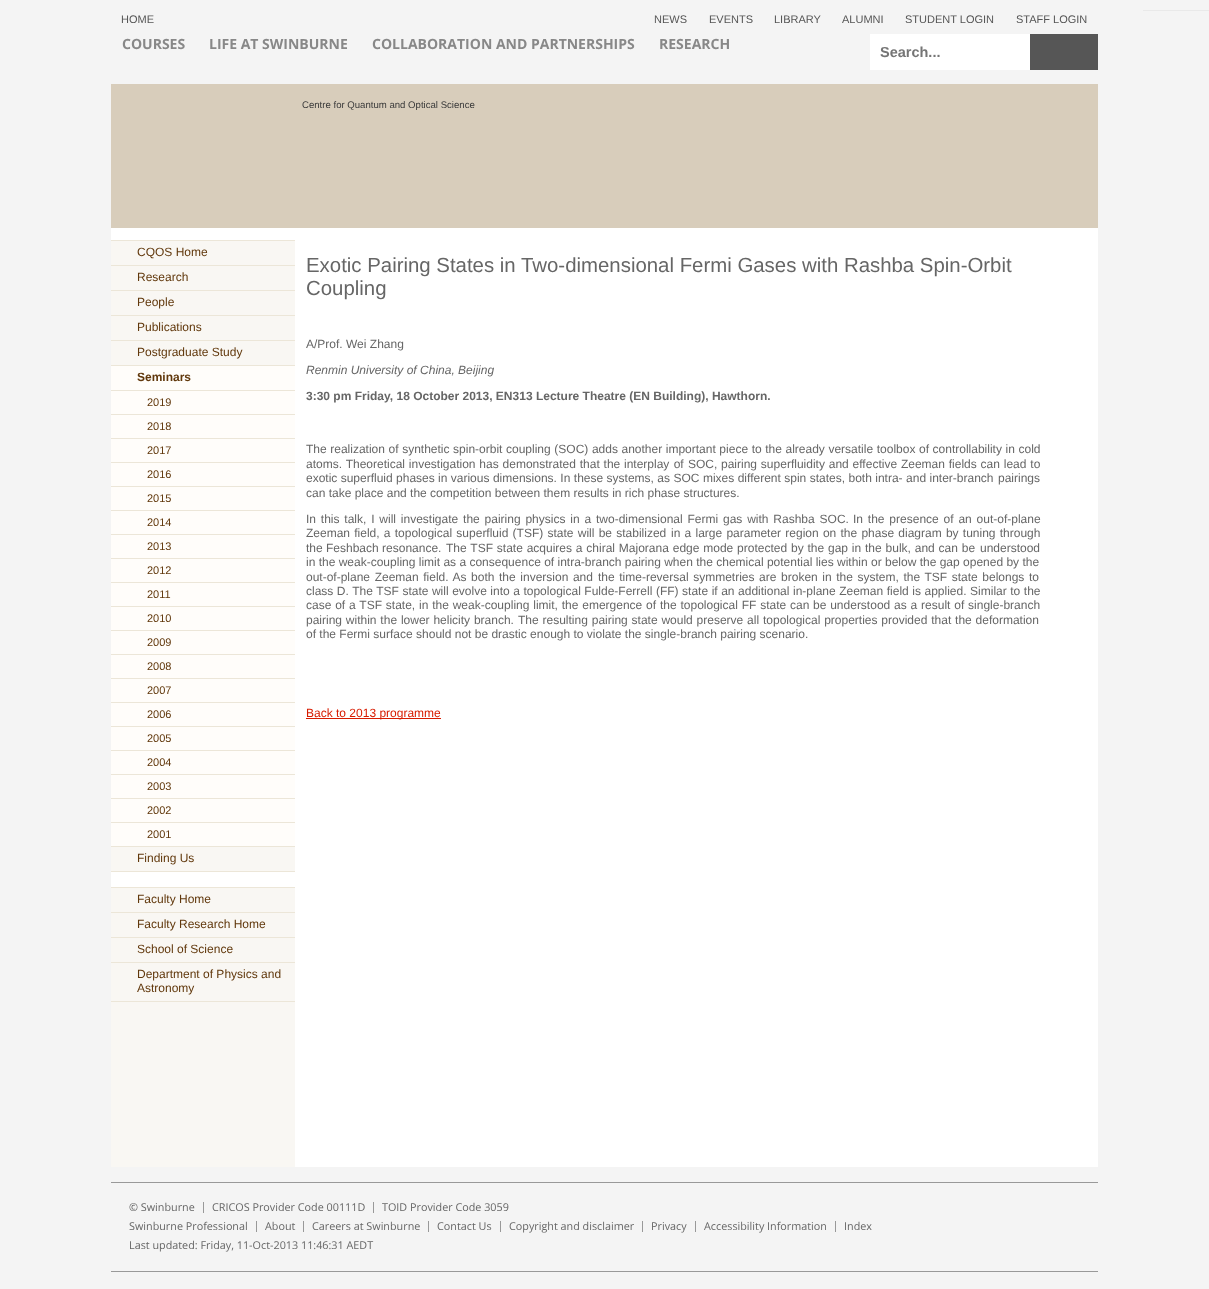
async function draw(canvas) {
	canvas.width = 1209;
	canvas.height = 1289;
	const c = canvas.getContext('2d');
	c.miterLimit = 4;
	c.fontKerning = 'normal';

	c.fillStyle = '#f4f4f4';
	c.fillRect(0, 0, 1209, 1289);
	c.fillStyle = '#e9e9e9';
	c.fillRect(1143, 10, 66, 1);
	c.font = '11px Liberation Sans';
	c.fillStyle = '#555';
	for (const [text, x, y] of [
		['HOME', 121, 23],
		['NEWS', 654, 23],
		['EVENTS', 709, 23],
		['LIBRARY', 774, 23],
		['ALUMNI', 842, 23],
		['STUDENT LOGIN', 905, 23],
		['STAFF LOGIN', 1016, 23],
	]) {
		c.fillText(text, x, y);
	}
	c.font = 'bold 14px Open Sans';
	c.fillStyle = '#888';
	for (const [text, x, y] of [
		['COURSES', 122, 49],
		['LIFE AT SWINBURNE', 209, 49],
		['COLLABORATION AND PARTNERSHIPS', 372, 49],
		['RESEARCH', 659, 49],
	]) {
		c.fillText(text, x, y);
	}
	c.fillStyle = '#565656';
	c.fillRect(1030, 34, 68, 36);
	c.fillStyle = '#fff';
	c.fillRect(870, 34, 160, 36);
	c.font = 'bold 14.5px Liberation Sans';
	c.fillStyle = '#757575';
	c.fillText('Search...', 880, 57);
	c.fillStyle = '#fff';
	c.fillRect(295, 228, 803, 939);
	c.fillStyle = '#d8cdbb';
	c.fillRect(111, 84, 987, 144);
	c.font = '9.6px Liberation Sans';
	c.fillStyle = '#393939';
	c.fillText('Centre for Quantum and Optical Science', 302, 108);
	for (const [x, y, w, h, color] of [
		[111, 1002, 184, 165, '#f9f7f3'],
		[111, 228, 184, 12, '#fff'],
		[111, 1001, 184, 1, '#ece6d8'],
		[111, 241, 184, 24, '#f9f7f3'],
		[111, 240, 184, 1, '#ece6d8'],
	]) {
		c.fillStyle = color;
		c.fillRect(x, y, w, h);
	}
	c.font = '12px Liberation Sans';
	c.fillStyle = '#61380c';
	c.fillText('CQOS Home', 137, 256);
	c.fillStyle = '#f9f7f3';
	c.fillRect(111, 266, 184, 24);
	c.fillStyle = '#ece6d8';
	c.fillRect(111, 265, 184, 1);
	c.fillStyle = '#61380c';
	c.fillText('Research', 137, 281);
	c.fillStyle = '#f9f7f3';
	c.fillRect(111, 291, 184, 24);
	c.fillStyle = '#ece6d8';
	c.fillRect(111, 290, 184, 1);
	c.fillStyle = '#61380c';
	c.fillText('People', 137, 306);
	c.fillStyle = '#f9f7f3';
	c.fillRect(111, 316, 184, 24);
	c.fillStyle = '#ece6d8';
	c.fillRect(111, 315, 184, 1);
	c.fillStyle = '#61380c';
	c.fillText('Publications', 137, 331);
	c.fillStyle = '#f9f7f3';
	c.fillRect(111, 341, 184, 24);
	c.fillStyle = '#ece6d8';
	c.fillRect(111, 340, 184, 1);
	c.fillStyle = '#61380c';
	c.fillText('Postgraduate Study', 137, 356);
	c.fillStyle = '#ece6d8';
	c.fillRect(111, 365, 184, 1);
	c.fillStyle = '#fffdfa';
	c.fillRect(111, 366, 184, 24);
	c.font = 'bold 12px Liberation Sans';
	c.fillStyle = '#61380c';
	c.fillText('Seminars', 137, 381);
	c.fillStyle = '#fffdfa';
	c.fillRect(111, 391, 184, 23);
	c.fillStyle = '#ece6d8';
	c.fillRect(111, 390, 184, 1);
	c.font = '11px Liberation Sans';
	c.fillStyle = '#61380c';
	c.fillText('2019', 147, 406);
	c.fillStyle = '#fffdfa';
	c.fillRect(111, 415, 184, 23);
	c.fillStyle = '#ece6d8';
	c.fillRect(111, 414, 184, 1);
	c.fillStyle = '#61380c';
	c.fillText('2018', 147, 430);
	c.fillStyle = '#fffdfa';
	c.fillRect(111, 439, 184, 23);
	c.fillStyle = '#ece6d8';
	c.fillRect(111, 438, 184, 1);
	c.fillStyle = '#61380c';
	c.fillText('2017', 147, 454);
	c.fillStyle = '#fffdfa';
	c.fillRect(111, 463, 184, 23);
	c.fillStyle = '#ece6d8';
	c.fillRect(111, 462, 184, 1);
	c.fillStyle = '#61380c';
	c.fillText('2016', 147, 478);
	c.fillStyle = '#fffdfa';
	c.fillRect(111, 487, 184, 23);
	c.fillStyle = '#ece6d8';
	c.fillRect(111, 486, 184, 1);
	c.fillStyle = '#61380c';
	c.fillText('2015', 147, 502);
	c.fillStyle = '#fffdfa';
	c.fillRect(111, 511, 184, 23);
	c.fillStyle = '#ece6d8';
	c.fillRect(111, 510, 184, 1);
	c.fillStyle = '#61380c';
	c.fillText('2014', 147, 526);
	c.fillStyle = '#fffdfa';
	c.fillRect(111, 535, 184, 23);
	c.fillStyle = '#ece6d8';
	c.fillRect(111, 534, 184, 1);
	c.fillStyle = '#61380c';
	c.fillText('2013', 147, 550);
	c.fillStyle = '#fffdfa';
	c.fillRect(111, 559, 184, 23);
	c.fillStyle = '#ece6d8';
	c.fillRect(111, 558, 184, 1);
	c.fillStyle = '#61380c';
	c.fillText('2012', 147, 574);
	c.fillStyle = '#fffdfa';
	c.fillRect(111, 583, 184, 23);
	c.fillStyle = '#ece6d8';
	c.fillRect(111, 582, 184, 1);
	c.fillStyle = '#61380c';
	c.fillText('2011', 147, 598);
	c.fillStyle = '#fffdfa';
	c.fillRect(111, 607, 184, 23);
	c.fillStyle = '#ece6d8';
	c.fillRect(111, 606, 184, 1);
	c.fillStyle = '#61380c';
	c.fillText('2010', 147, 622);
	c.fillStyle = '#fffdfa';
	c.fillRect(111, 631, 184, 23);
	c.fillStyle = '#ece6d8';
	c.fillRect(111, 630, 184, 1);
	c.fillStyle = '#61380c';
	c.fillText('2009', 147, 646);
	c.fillStyle = '#fffdfa';
	c.fillRect(111, 655, 184, 23);
	c.fillStyle = '#ece6d8';
	c.fillRect(111, 654, 184, 1);
	c.fillStyle = '#61380c';
	c.fillText('2008', 147, 670);
	c.fillStyle = '#fffdfa';
	c.fillRect(111, 679, 184, 23);
	c.fillStyle = '#ece6d8';
	c.fillRect(111, 678, 184, 1);
	c.fillStyle = '#61380c';
	c.fillText('2007', 147, 694);
	c.fillStyle = '#fffdfa';
	c.fillRect(111, 703, 184, 23);
	c.fillStyle = '#ece6d8';
	c.fillRect(111, 702, 184, 1);
	c.fillStyle = '#61380c';
	c.fillText('2006', 147, 718);
	c.fillStyle = '#fffdfa';
	c.fillRect(111, 727, 184, 23);
	c.fillStyle = '#ece6d8';
	c.fillRect(111, 726, 184, 1);
	c.fillStyle = '#61380c';
	c.fillText('2005', 147, 742);
	c.fillStyle = '#fffdfa';
	c.fillRect(111, 751, 184, 23);
	c.fillStyle = '#ece6d8';
	c.fillRect(111, 750, 184, 1);
	c.fillStyle = '#61380c';
	c.fillText('2004', 147, 766);
	c.fillStyle = '#fffdfa';
	c.fillRect(111, 775, 184, 23);
	c.fillStyle = '#ece6d8';
	c.fillRect(111, 774, 184, 1);
	c.fillStyle = '#61380c';
	c.fillText('2003', 147, 790);
	c.fillStyle = '#fffdfa';
	c.fillRect(111, 799, 184, 23);
	c.fillStyle = '#ece6d8';
	c.fillRect(111, 798, 184, 1);
	c.fillStyle = '#61380c';
	c.fillText('2002', 147, 814);
	c.fillStyle = '#fffdfa';
	c.fillRect(111, 823, 184, 23);
	c.fillStyle = '#ece6d8';
	c.fillRect(111, 822, 184, 1);
	c.fillStyle = '#61380c';
	c.fillText('2001', 147, 838);
	c.fillStyle = '#f9f7f3';
	c.fillRect(111, 847, 184, 24);
	c.fillStyle = '#ece6d8';
	c.fillRect(111, 846, 184, 1);
	c.font = '12px Liberation Sans';
	c.fillStyle = '#61380c';
	c.fillText('Finding Us', 137, 862);
	for (const [x, y, w, h, color] of [
		[111, 872, 184, 15, '#fff'],
		[111, 871, 184, 1, '#ece6d8'],
		[111, 888, 184, 24, '#f9f7f3'],
		[111, 887, 184, 1, '#ece6d8'],
	]) {
		c.fillStyle = color;
		c.fillRect(x, y, w, h);
	}
	c.fillStyle = '#61380c';
	c.fillText('Faculty Home', 137, 903);
	c.fillStyle = '#f9f7f3';
	c.fillRect(111, 913, 184, 24);
	c.fillStyle = '#ece6d8';
	c.fillRect(111, 912, 184, 1);
	c.fillStyle = '#61380c';
	c.fillText('Faculty Research Home', 137, 928);
	c.fillStyle = '#f9f7f3';
	c.fillRect(111, 938, 184, 24);
	c.fillStyle = '#ece6d8';
	c.fillRect(111, 937, 184, 1);
	c.fillStyle = '#61380c';
	c.fillText('School of Science', 137, 953);
	c.fillStyle = '#f9f7f3';
	c.fillRect(111, 963, 184, 38);
	c.fillStyle = '#ece6d8';
	c.fillRect(111, 962, 184, 1);
	c.fillStyle = '#61380c';
	c.fillText('Department of Physics and', 137, 978);
	c.fillText('Astronomy', 137, 992);
	c.font = '20.4px Liberation Sans';
	c.fillStyle = '#666';
	c.fillText('Exotic Pairing States in Two-dimensional Fermi Gases with Rashba Spin-Orbit', 306, 272);
	c.fillText('Coupling', 306, 295);
	c.font = '12px Liberation Sans';
	c.fillText('A/Prof. Wei Zhang', 306, 348);
	c.font = 'italic 12px Liberation Sans';
	c.fillText('Renmin University of China, Beijing', 306, 374);
	c.font = 'bold 12px Liberation Sans';
	c.fillText('3:30 pm Friday, 18 October 2013, EN313 Lecture Theatre (EN Building), Hawthorn.', 306, 400);
	c.wordSpacing = '0.25px';
	c.font = '12px Liberation Sans';
	c.fillText('The realization of synthetic spin-orbit coupling (SOC) adds another important piece to the already versatile toolbox of controllability in cold', 306, 453);
	c.wordSpacing = '0.5px';
	c.fillText('atoms. Theoretical investigation has demonstrated that the', 306, 468);
	c.wordSpacing = '1px';
	c.fillText('interplay of SOC,', 624, 468);
	c.wordSpacing = '0.5px';
	c.fillText('pairing superfluidity and effective Zeeman fields can lead to', 721, 468);
	c.wordSpacing = '0px';
	c.fillText('exotic superfluid phases', 306, 482);
	c.wordSpacing = '0.1px';
	c.fillText('in various dimensions. In these systems, as SOC mixes different spin states, both intra- and inter-branch', 438, 482);
	c.wordSpacing = '0px';
	c.fillText('pairings', 998, 482);
	c.fillText('can take place and the competition between them results in rich phase structures.', 306, 497);
	c.wordSpacing = '1.5px';
	c.fillText('In this talk, I will investigate the pairing physics in a two-dimensional Fermi gas with Rashba SOC.', 306, 523);
	c.fillText('In the presence of an out-of-plane', 853, 523);
	c.wordSpacing = '0.9px';
	c.fillText('Zeeman field, a topological superfluid (TSF) state will be stabilized', 306, 537);
	c.fillText('in a large parameter region on the phase diagram by tuning through', 671, 537);
	c.wordSpacing = '0px';
	c.fillText('the Feshbach resonance.', 306, 552);
	c.wordSpacing = '0.5px';
	c.fillText('The TSF state acquires a chiral Majorana edge mode protected by the gap in the bulk, and can be', 446, 552);
	c.wordSpacing = '0px';
	c.fillText('understood', 980, 552);
	c.fillText('in the weak-coupling limit as a consequence of intra-branch pairing when the chemical potential lies within or below the gap opened by the', 306, 566);
	c.wordSpacing = '1.25px';
	c.fillText('out-of-plane Zeeman field. As both the inversion and', 306, 581);
	c.fillText('the time-reversal symmetries are broken in the system, the TSF state belongs to', 598, 581);
	c.wordSpacing = '0.2px';
	c.fillText('class D. The TSF state will evolve into a topological Fulde-Ferrell (FF) state if an additional in-plane Zeeman field is applied. Similar to the', 306, 595);
	c.wordSpacing = '0.5px';
	for (const [text, x, y] of [
		['case of a TSF state, in the weak-coupling limit, the emergence of the topological FF state can', 306, 609],
		['be understood as a result of single-branch', 813, 609],
		['pairing within the lower helicity branch.', 306, 624],
		['The resulting pairing state would preserve all topological properties provided that the deformation', 518, 624],
	]) {
		c.fillText(text, x, y);
	}
	c.wordSpacing = '0px';
	c.fillText('of the Fermi surface should not be drastic enough to violate the single-branch pairing scenario.', 306, 638);
	c.fillStyle = '#d71b00';
	c.fillRect(306, 718, 135, 1);
	c.fillText('Back to 2013 programme', 306, 717);
	for (const [x, y, w, h, color] of [
		[111, 1182, 987, 1, '#999'],
		[111, 1271, 987, 1, '#999'],
		[203, 1202, 1, 11, '#999'],
	]) {
		c.fillStyle = color;
		c.fillRect(x, y, w, h);
	}
	c.font = '10.8px Open Sans';
	c.fillStyle = '#666';
	c.fillText('© Swinburne', 129, 1211);
	c.fillStyle = '#999';
	c.fillRect(373, 1202, 1, 11);
	c.fillStyle = '#666';
	c.fillText('CRICOS Provider Code 00111D', 212, 1211);
	c.fillText('TOID Provider Code 3059', 382, 1211);
	c.fillStyle = '#999';
	c.fillRect(256, 1221, 1, 11);
	c.fillStyle = '#666';
	c.fillText('Swinburne Professional', 129, 1230);
	c.fillStyle = '#999';
	c.fillRect(303, 1221, 1, 11);
	c.fillStyle = '#666';
	c.fillText('About', 265, 1230);
	c.fillStyle = '#999';
	c.fillRect(428, 1221, 1, 11);
	c.fillStyle = '#666';
	c.fillText('Careers at Swinburne', 312, 1230);
	c.fillStyle = '#999';
	c.fillRect(500, 1221, 1, 11);
	c.fillStyle = '#666';
	c.fillText('Contact Us', 437, 1230);
	c.fillStyle = '#999';
	c.fillRect(642, 1221, 1, 11);
	c.fillStyle = '#666';
	c.fillText('Copyright and disclaimer', 509, 1230);
	c.fillStyle = '#999';
	c.fillRect(695, 1221, 1, 11);
	c.fillStyle = '#666';
	c.fillText('Privacy', 651, 1230);
	c.fillStyle = '#999';
	c.fillRect(835, 1221, 1, 11);
	c.fillStyle = '#666';
	for (const [text, x, y] of [
		['Accessibility Information', 704, 1230],
		['Index', 844, 1230],
		['Last updated: Friday, 11-Oct-2013 11:46:31 AEDT', 129, 1249],
	]) {
		c.fillText(text, x, y);
	}
}

draw(document.querySelector('canvas'));
